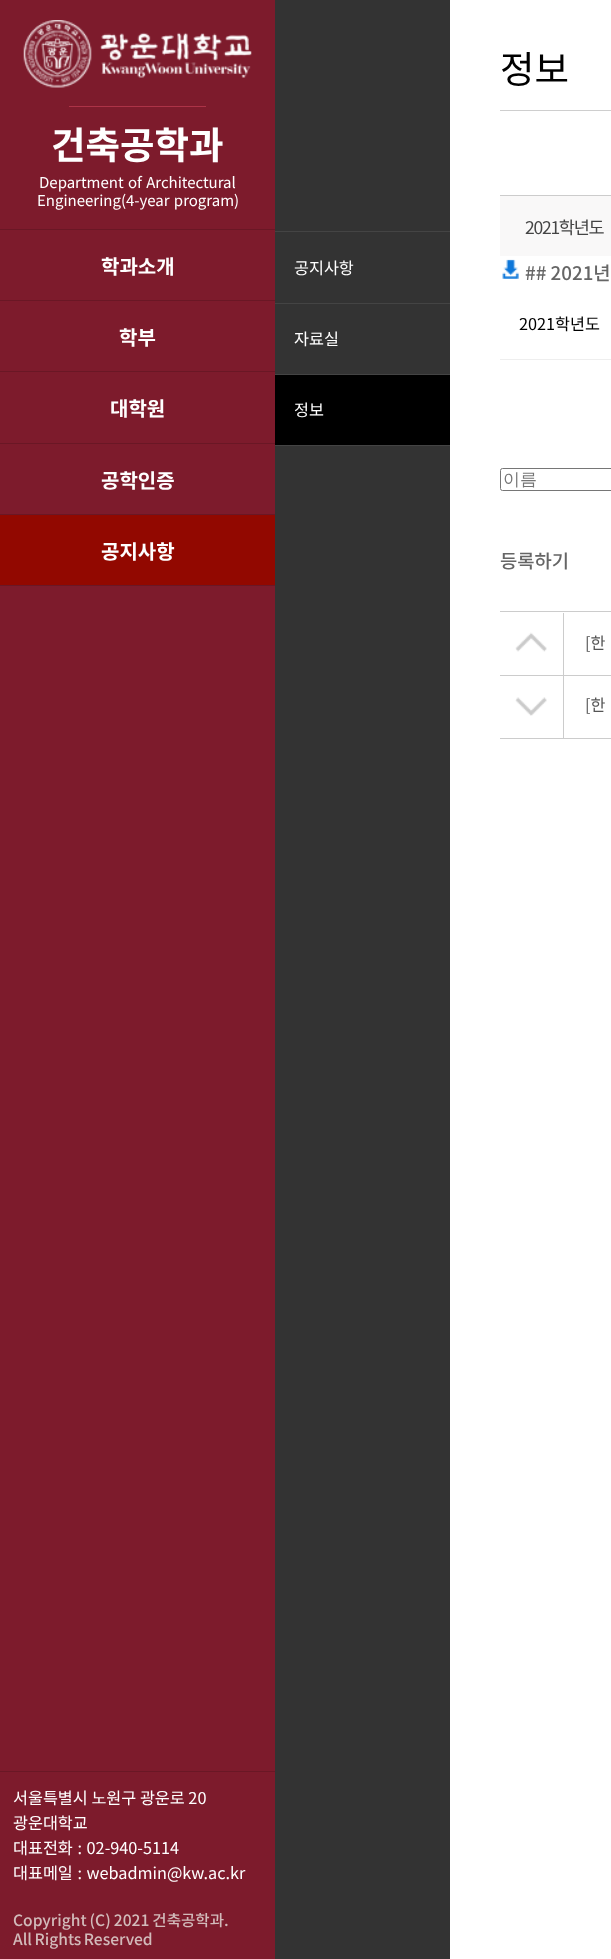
async function draw(canvas) {
	canvas.width = 611;
	canvas.height = 1959;
	const c = canvas.getContext('2d');
	c.miterLimit = 4;
	c.fontKerning = 'normal';
	async function loadImage(src) {
		const img = new Image();
		img.src = src;
		await img.decode();
		return img;
	}

	c.fillStyle = '#fff';
	c.fillRect(0, 0, 611, 1959);
	c.fillStyle = '#7d1b2c';
	c.fillRect(0, 0, 275, 1959);
	c.drawImage(await loadImage('img1.png'), 23, 20, 229, 68);
	c.fillStyle = '#ad3347';
	c.fillRect(69, 106, 137, 1);
	c.font = 'bold 37.5px Noto Sans KR';
	c.fillStyle = '#fff';
	c.fillText('건축공학과', 51, 159);
	c.wordSpacing = '1px';
	c.font = '15px Noto Sans KR';
	c.fillText('Department of Architectural', 39, 188);
	c.fillText('Engineering(4-year program)', 37, 206);
	c.fillStyle = '#6a1725';
	c.fillRect(0, 229, 275, 1);
	c.wordSpacing = '0px';
	c.font = 'bold 20px Noto Sans KR';
	c.fillStyle = '#fff';
	c.fillText('학과소개', 101, 274);
	c.fillStyle = '#6a1725';
	c.fillRect(0, 300, 275, 1);
	c.fillStyle = '#fff';
	c.fillText('학부', 119, 345);
	c.fillStyle = '#6a1725';
	c.fillRect(0, 371, 275, 1);
	c.fillStyle = '#fff';
	c.fillText('대학원', 110, 416);
	c.fillStyle = '#6a1725';
	c.fillRect(0, 443, 275, 1);
	c.fillStyle = '#fff';
	c.fillText('공학인증', 101, 488);
	for (const [x, y, w, h, color] of [
		[0, 515, 275, 70, '#920800'],
		[0, 514, 275, 1, '#6a1725'],
		[0, 585, 275, 1, '#6a1725'],
	]) {
		c.fillStyle = color;
		c.fillRect(x, y, w, h);
	}
	c.fillStyle = '#fff';
	c.fillText('공지사항', 101, 559);
	for (const [x, y, w, h, color] of [
		[275, 0, 175, 1959, '#333'],
		[275, 231, 175, 1, '#444'],
		[275, 303, 175, 1, '#444'],
	]) {
		c.fillStyle = color;
		c.fillRect(x, y, w, h);
	}
	c.font = '16.25px Noto Sans KR';
	c.fillStyle = '#fff';
	c.fillText('공지사항', 294, 274);
	c.fillStyle = '#444';
	c.fillRect(275, 374, 175, 1);
	c.fillStyle = '#fff';
	c.fillText('자료실', 294, 345);
	c.fillStyle = '#000';
	c.fillRect(275, 375, 175, 70);
	c.fillStyle = '#444';
	c.fillRect(275, 445, 175, 1);
	c.fillStyle = '#fff';
	c.fillText('정보', 294, 416);
	c.fillStyle = '#6a1725';
	c.fillRect(0, 1771, 275, 1);
	c.fillStyle = '#fff';
	c.fillText('서울특별시 노원구 광운로 20', 13, 1804);
	c.fillText('광운대학교', 13, 1829);
	c.wordSpacing = '1px';
	c.fillText('대표전화 : 02-940-5114', 13, 1854);
	c.fillText('대표메일 : webadmin@kw.ac.kr', 13, 1879);
	c.wordSpacing = '-0.5px';
	c.font = '500 15.6px Noto Sans KR';
	c.fillStyle = '#d2baba';
	c.fillText('Copyright (C) 2021 건축공학과.', 13, 1926);
	c.wordSpacing = '-1px';
	c.fillText('All Rights Reserved', 13, 1945);
	c.fillStyle = '#cecece';
	c.fillRect(500, 110, 111, 1);
	c.wordSpacing = '0px';
	c.font = '37.5px Noto Sans KR';
	c.fillStyle = '#000';
	c.fillText('정보', 500, 83);
	c.fillStyle = '#f9f8f8';
	c.fillRect(500, 196, 111, 60);
	c.fillStyle = '#ccc';
	c.fillRect(500, 195, 111, 1);
	c.letterSpacing = '-1.25px';
	c.font = '17.5px Noto Sans KR';
	c.fillStyle = '#444';
	c.fillText('2021학년도', 525, 234);
	c.drawImage(await loadImage('img2.png'), 502, 259, 17, 20);
	c.letterSpacing = '0px';
	c.font = '500 18.75px Noto Sans KR';
	c.fillStyle = '#666';
	c.fillText('## 2021년', 525, 280);
	c.fillStyle = '#eee';
	c.fillRect(500, 359, 111, 1);
	c.font = '16.25px Noto Sans KR';
	c.fillStyle = '#000';
	c.fillText('2021학년도', 519, 330);
	c.beginPath();
	c.roundRect(500.5, 468.5, 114, 22, 2);
	c.strokeStyle = '#767676';
	c.stroke();
	c.font = '500 17px WenQuanYi Zen Hei';
	c.fillStyle = '#757575';
	c.fillText('이름', 503, 485);
	c.font = '500 18.75px Noto Sans KR';
	c.fillStyle = '#666';
	c.fillText('등록하기', 500, 568);
	c.fillStyle = '#ccc';
	c.fillRect(500, 611, 111, 1);
	c.fillRect(500, 675, 111, 1);
	c.drawImage(await loadImage('img3.png'), 515, 632, 32, 20);
	c.font = '16.25px Noto Sans KR';
	c.fillStyle = '#555';
	c.fillText('[한', 585, 649);
	c.fillStyle = '#ccc';
	c.fillRect(500, 738, 111, 1);
	c.fillRect(563, 613, 1, 126);
	c.drawImage(await loadImage('img4.png'), 515, 697, 32, 19);
	c.fillStyle = '#555';
	c.fillText('[한', 585, 711);
}

draw(document.querySelector('canvas'));
